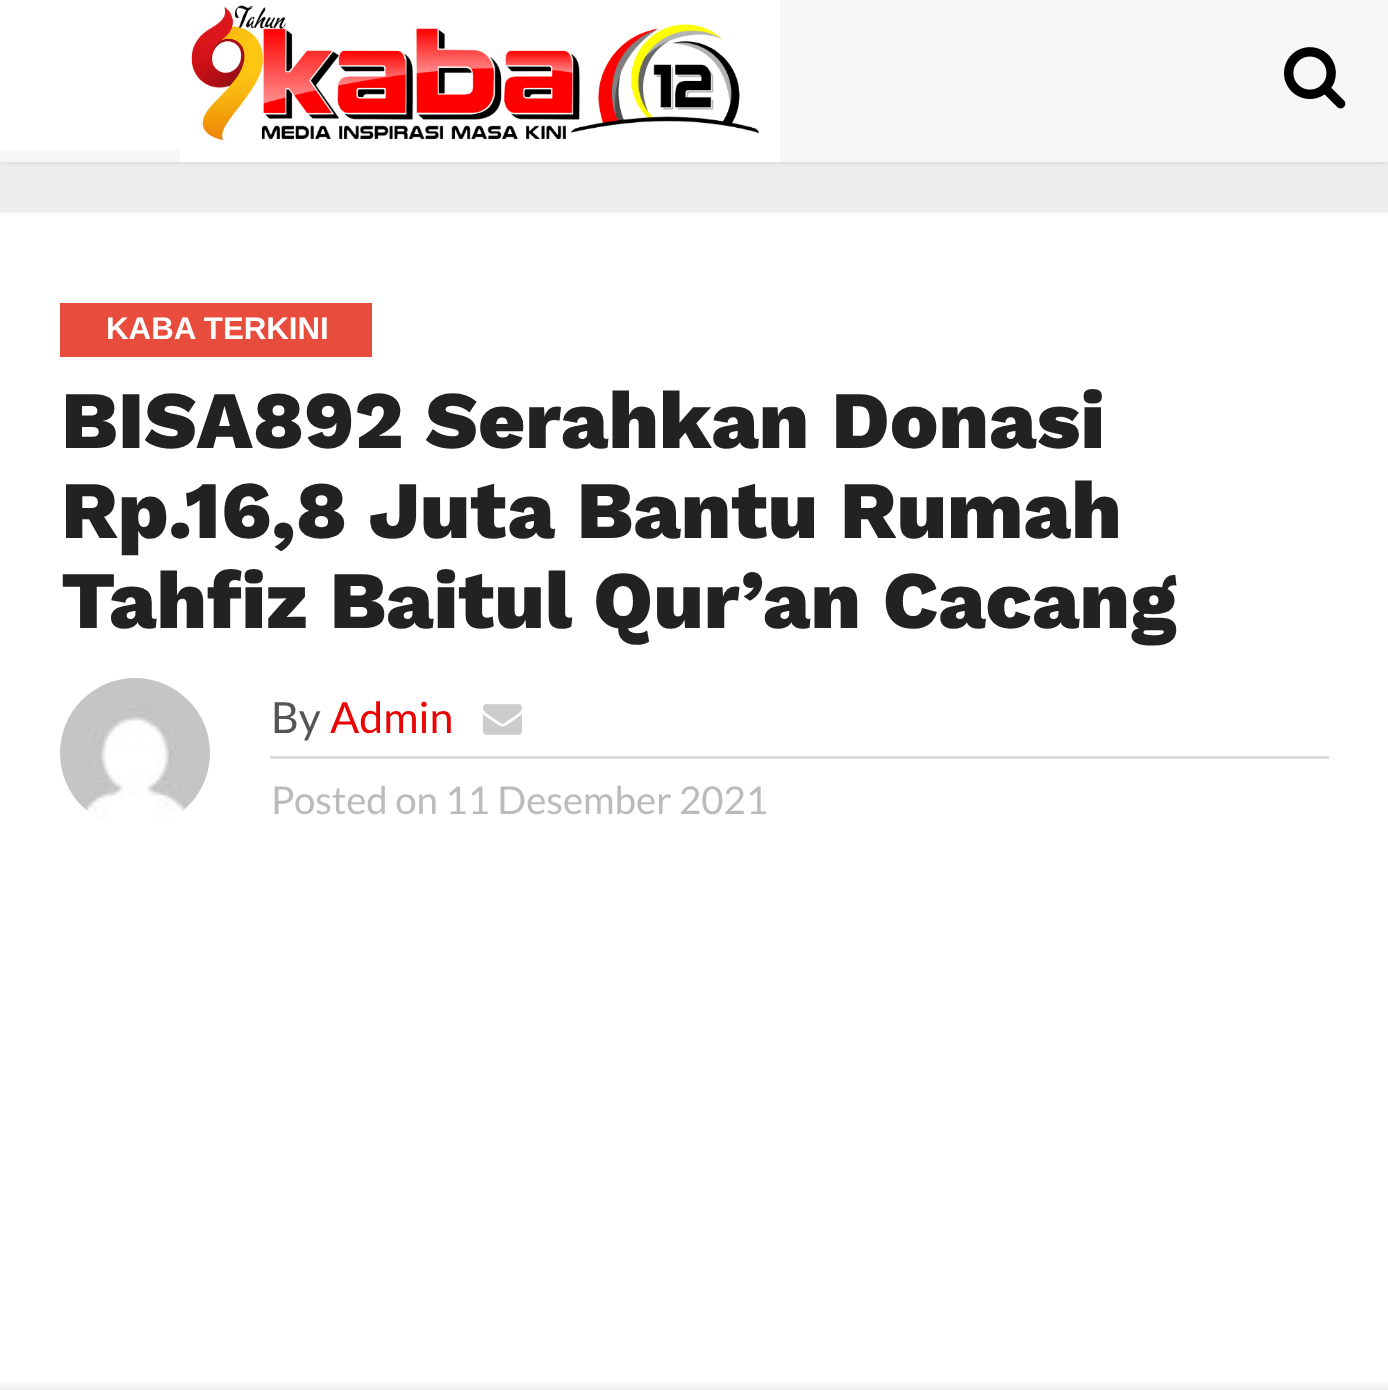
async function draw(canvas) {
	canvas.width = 1388;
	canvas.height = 1390;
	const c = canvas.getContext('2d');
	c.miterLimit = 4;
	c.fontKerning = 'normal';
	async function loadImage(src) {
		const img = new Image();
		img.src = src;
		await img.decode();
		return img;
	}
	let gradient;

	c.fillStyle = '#fff';
	c.fillRect(0, 0, 1388, 1390);
	c.fillStyle = '#eee';
	c.fillRect(0, 162, 1388, 51);
	c.fillStyle = '#0000004d';
	c.filter = 'blur(4.5px)';
	c.beginPath();
	c.rect(0, 6, 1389, 153);
	c.fill();
	c.filter = 'none';
	c.fillStyle = '#f7f7f7';
	c.fillRect(0, 0, 1388, 162);
	c.fillStyle = '#fff';
	c.fillRect(0, 0, 180, 150);
	c.drawImage(await loadImage('img1.png'), 180, 0, 600, 162);
	c.drawImage(await loadImage('img2.png'), 1284, 47, 62, 62);
	c.fillStyle = '#e74c3c';
	c.fillRect(60, 303, 312, 54);
	c.font = 'bold 31.25px Liberation Sans';
	c.fillStyle = '#fff';
	c.fillText('KABA TERKINI', 106, 339);
	c.font = '800 81.6px Work Sans';
	c.fillStyle = '#222';
	for (const [text, x, y] of [
		['BISA892 Serahkan Donasi', 61, 448],
		['Rp.16,8 Juta Bantu Rumah', 61, 538],
		['Tahfiz Baitul Qur’an Cacang', 61, 628],
	]) {
		c.fillText(text, x, y);
	}
	c.drawImage(await loadImage('img3.png'), 60, 678, 150, 143);
	c.fillStyle = '#ddd';
	c.fillRect(270, 756, 1059, 3);
	c.font = '43px Lato';
	c.fillStyle = '#555';
	c.fillText('By', 271, 733);
	c.fillStyle = '#eb0303';
	c.fillText('Admin', 330, 733);
	c.drawImage(await loadImage('img4.png'), 483, 704, 39, 31);
	c.font = '38.4px Lato';
	c.fillStyle = '#bbb';
	c.fillText('Posted on 11 Desember 2021', 271, 814);
	gradient = c.createLinearGradient(695, 1380, 695, 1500);
	gradient.addColorStop(0, '#fff');
	gradient.addColorStop(0.5, '#999');
	gradient.addColorStop(1, '#666');
	c.fillStyle = gradient;
	c.fillRect(0, 1381, 1388, 9);
}

draw(document.querySelector('canvas'));
